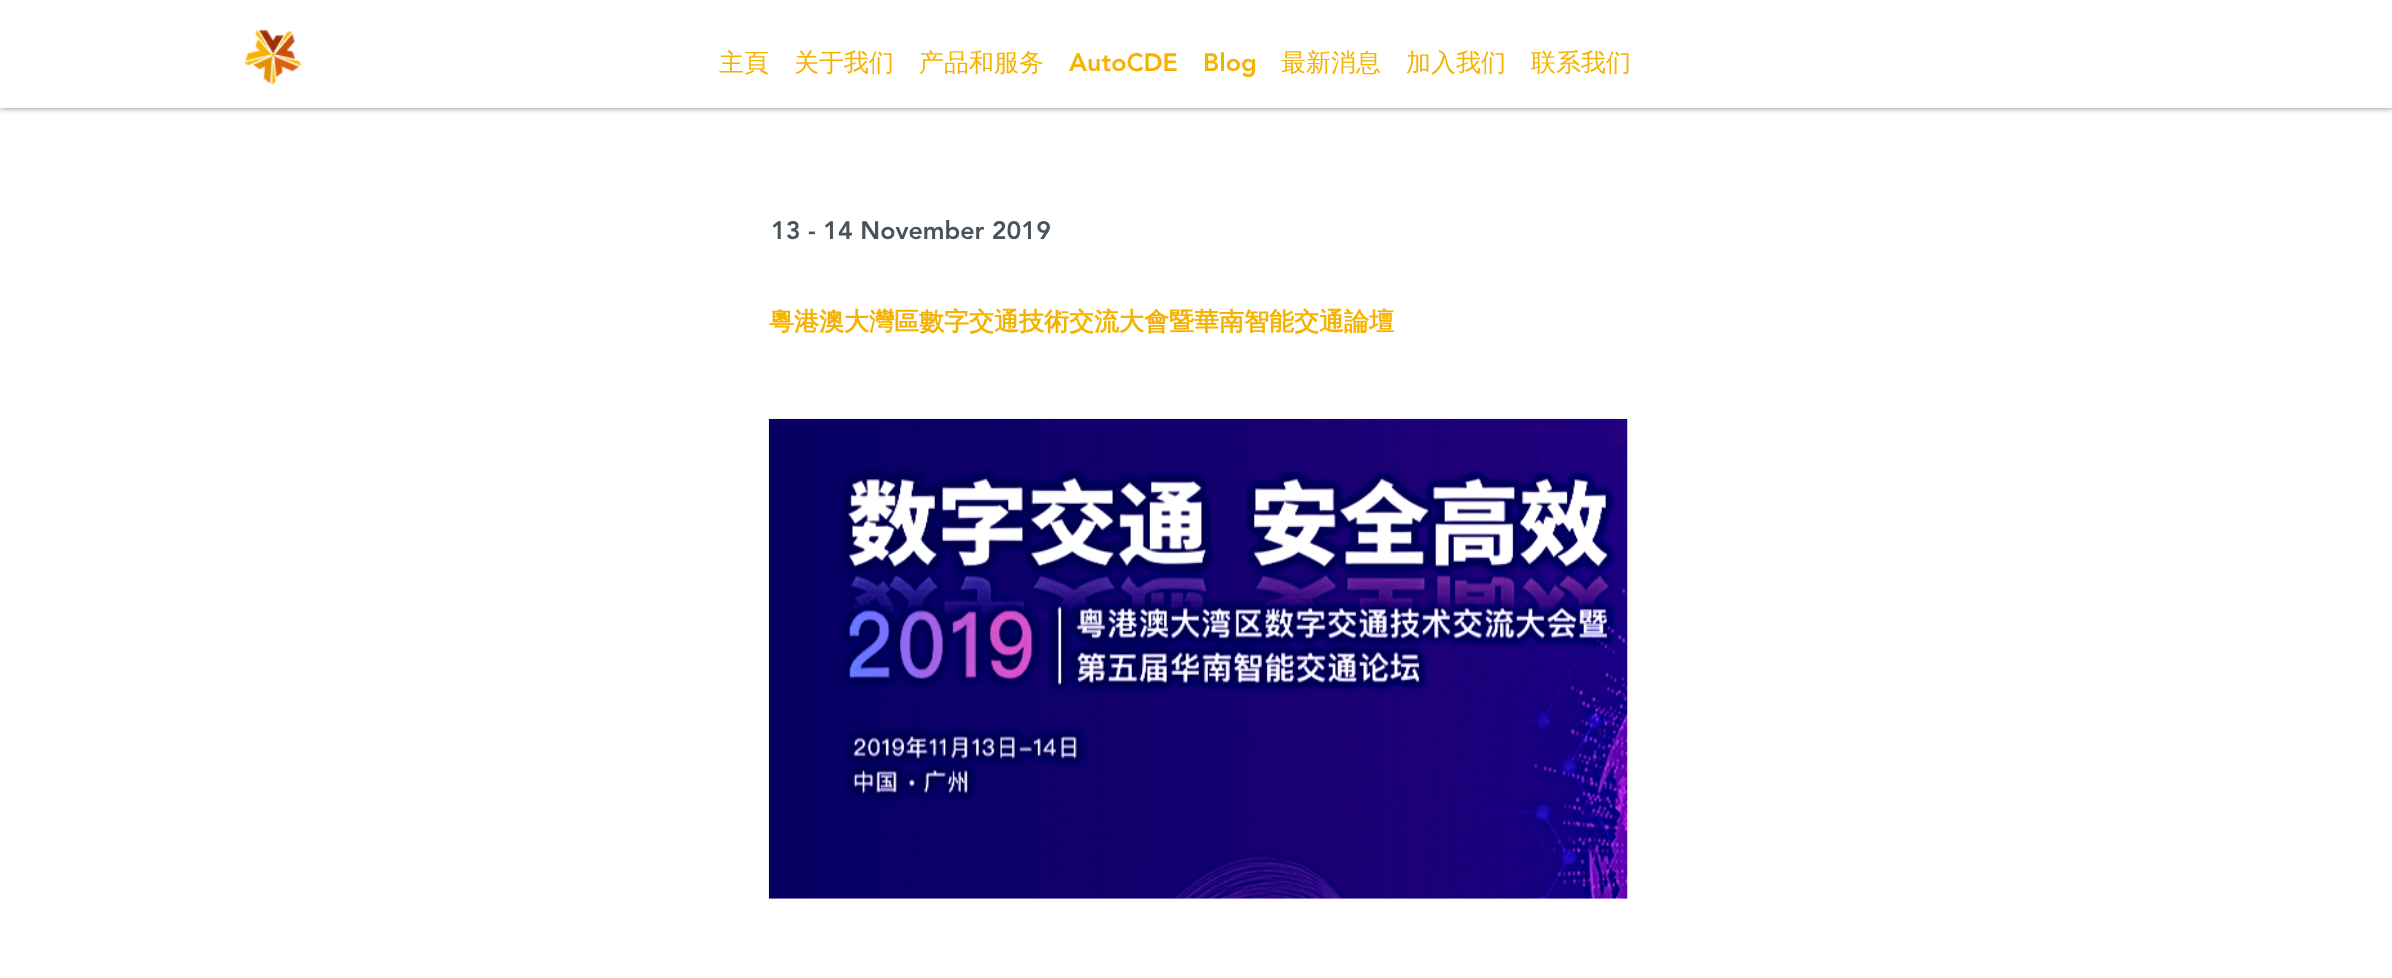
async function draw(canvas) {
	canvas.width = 2392;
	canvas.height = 978;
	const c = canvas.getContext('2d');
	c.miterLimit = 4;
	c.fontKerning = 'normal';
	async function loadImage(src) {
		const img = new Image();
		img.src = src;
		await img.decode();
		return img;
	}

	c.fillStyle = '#fff';
	c.fillRect(0, 0, 2392, 978);
	c.fillStyle = '#00000080';
	c.filter = 'blur(3px)';
	c.beginPath();
	c.rect(0, 0, 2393, 108);
	c.fill();
	c.filter = 'none';
	c.fillStyle = '#fff';
	c.fillRect(0, 0, 2392, 108);
	c.drawImage(await loadImage('img1.png'), 244, 29, 58, 57);
	c.font = '500 25px WenQuanYi Zen Hei';
	c.fillStyle = '#f6b200';
	for (const [text, x, y] of [
		['主頁', 719, 71],
		['关于我们', 794, 71],
		['产品和服务', 919, 71],
	]) {
		c.fillText(text, x, y);
	}
	c.font = '900 25px "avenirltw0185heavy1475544"';
	c.fillText('AutoCDE', 1069, 71);
	c.fillText('Blog', 1203, 71);
	c.font = '500 25px WenQuanYi Zen Hei';
	for (const [text, x, y] of [
		['最新消息', 1281, 71],
		['加入我们', 1406, 71],
		['联系我们', 1531, 71],
	]) {
		c.fillText(text, x, y);
	}
	c.font = '900 25px "avenirltw0185heavy1475544"';
	c.fillStyle = '#495359';
	c.fillText('13 - 14 November 2019', 771, 239);
	c.font = 'bold 25px WenQuanYi Zen Hei';
	c.fillStyle = '#f6b200';
	c.fillText('粵港澳大灣區數字交通技術交流大會暨華南智能交通論壇', 769, 330);
	c.drawImage(await loadImage('img2.png'), 768, 418, 860, 481);
}

draw(document.querySelector('canvas'));
